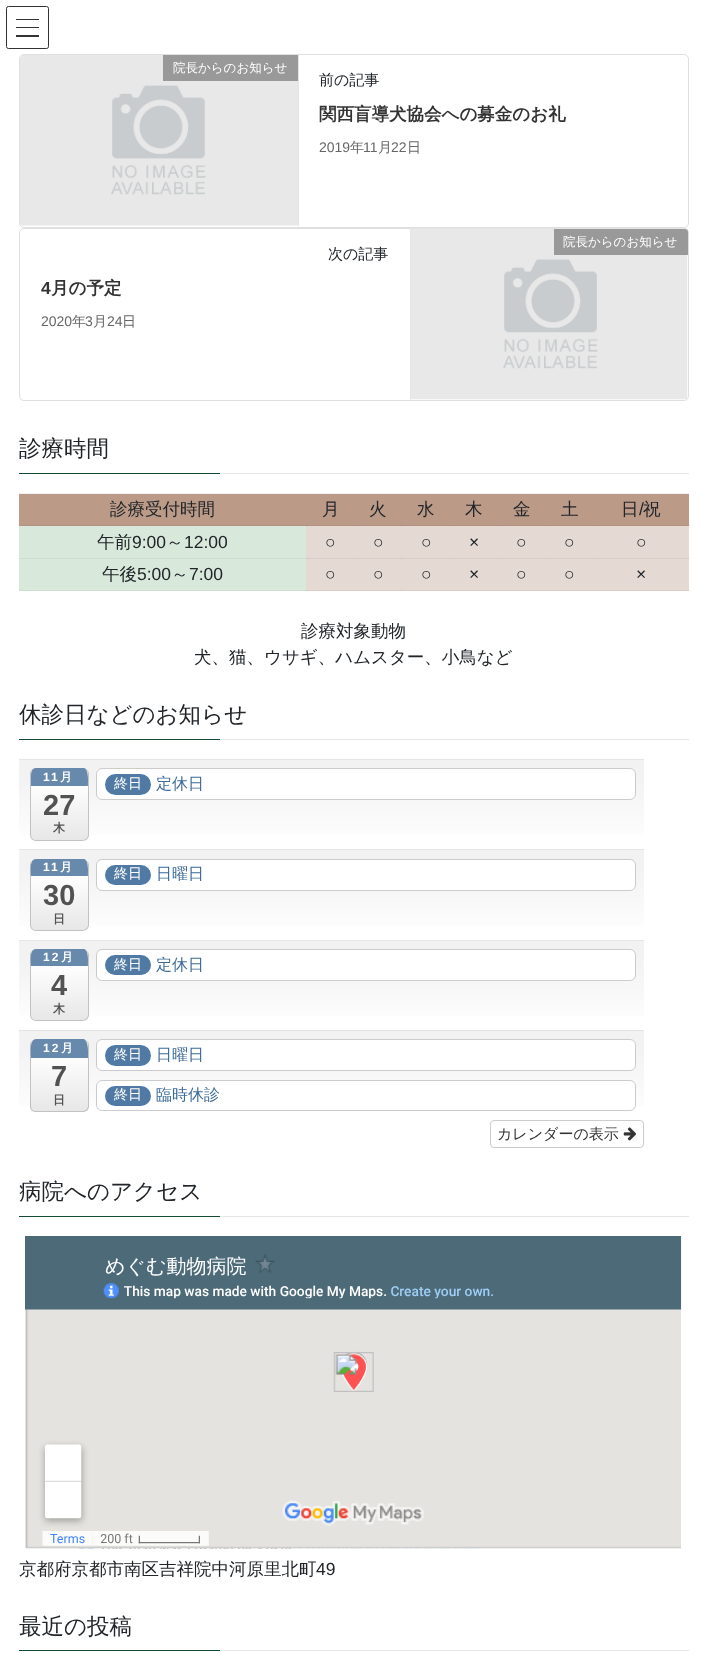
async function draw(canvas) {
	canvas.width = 707;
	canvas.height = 1654;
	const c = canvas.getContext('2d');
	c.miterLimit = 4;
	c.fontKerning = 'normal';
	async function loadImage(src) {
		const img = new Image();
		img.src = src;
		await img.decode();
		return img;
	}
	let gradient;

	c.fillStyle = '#fff';
	c.fillRect(0, 0, 707, 1654);
	for (const [x, y, w, h, color] of [
		[689, 525, 1, 1, '#f2f2f2'],
		[689, 558, 1, 1, '#f2f2f2'],
		[689, 590, 1, 1, '#f2f2f2'],
		[16, 19, 23, 1, '#333'],
		[16, 27, 23, 1, '#333'],
		[16, 35, 23, 2, '#333'],
	]) {
		c.fillStyle = color;
		c.fillRect(x, y, w, h);
	}
	c.beginPath();
	c.roundRect(6.5, 6.5, 42, 42, 2);
	c.strokeStyle = '#333';
	c.stroke();
	c.beginPath();
	c.roundRect(19.5, 54.5, 669, 173, 4.5);
	c.strokeStyle = '#dfdfdf';
	c.stroke();
	c.drawImage(await loadImage('img1.png'), 20, 55, 278, 171);
	c.fillStyle = '#e5e5e5';
	c.fillRect(298, 55, 1, 171);
	c.fillStyle = '#999';
	c.fillRect(163, 55, 135, 26);
	c.font = '500 12.5px WenQuanYi Zen Hei';
	c.fillStyle = '#fff';
	c.fillText('院長からのお知らせ', 173, 72);
	c.font = '500 15px WenQuanYi Zen Hei';
	c.fillStyle = '#212529';
	c.fillText('前の記事', 319, 85);
	c.font = 'bold 17.5px WenQuanYi Zen Hei';
	c.fillStyle = '#333';
	c.fillText('関西盲導犬協会への募金のお礼', 319, 120);
	c.font = '14px Liberation Sans';
	c.fillStyle = '#666';
	c.fillText('2019', 319, 152);
	c.font = '500 14px WenQuanYi Zen Hei';
	c.fillText('年', 350, 152);
	c.font = '14px Liberation Sans';
	c.fillText('11', 363, 152);
	c.font = '500 14px WenQuanYi Zen Hei';
	c.fillText('月', 378, 152);
	c.font = '14px Liberation Sans';
	c.fillText('22', 391, 152);
	c.font = '500 14px WenQuanYi Zen Hei';
	c.fillText('日', 407, 152);
	c.beginPath();
	c.roundRect(19.5, 228.5, 669, 172, 4.5);
	c.stroke();
	c.drawImage(await loadImage('img2.png'), 410, 228, 278, 172);
	c.fillStyle = '#e5e5e5';
	c.fillRect(410, 229, 1, 171);
	c.fillStyle = '#999';
	c.beginPath();
	c.roundRect(554, 229, 134, 26, [0, 3, 0, 0]);
	c.fill();
	c.font = '500 12.5px WenQuanYi Zen Hei';
	c.fillStyle = '#fff';
	c.fillText('院長からのお知らせ', 563, 246);
	c.font = '500 15px WenQuanYi Zen Hei';
	c.fillStyle = '#212529';
	c.fillText('次の記事', 328, 259);
	c.font = 'bold 17.5px Liberation Sans';
	c.fillStyle = '#333';
	c.fillText('4', 41, 294);
	c.font = 'bold 17.5px WenQuanYi Zen Hei';
	c.fillText('月の予定', 51, 294);
	c.font = '14px Liberation Sans';
	c.fillStyle = '#666';
	c.fillText('2020', 41, 326);
	c.font = '500 14px WenQuanYi Zen Hei';
	c.fillText('年', 72, 326);
	c.font = '14px Liberation Sans';
	c.fillText('3', 85, 326);
	c.font = '500 14px WenQuanYi Zen Hei';
	c.fillText('月', 93, 326);
	c.font = '14px Liberation Sans';
	c.fillText('24', 107, 326);
	c.font = '500 14px WenQuanYi Zen Hei';
	c.fillText('日', 122, 326);
	c.fillStyle = '#e6e6e6';
	c.fillRect(220, 473, 469, 1);
	c.font = '500 22.5px WenQuanYi Zen Hei';
	c.fillStyle = '#212529';
	c.fillText('診療時間', 19, 456);
	for (const [x, y, w, h, color] of [
		[19, 473, 201, 1, '#144a31'],
		[19, 493, 670, 1, '#f2f2f2'],
		[19, 494, 670, 31, '#bb9a88'],
		[19, 525, 670, 1, '#b29281'],
	]) {
		c.fillStyle = color;
		c.fillRect(x, y, w, h);
	}
	c.font = '500 17.5px WenQuanYi Zen Hei';
	c.fillStyle = '#212529';
	c.fillText('診療受付時間', 110, 515);
	c.fillStyle = '#a98b7b';
	c.fillRect(306, 525, 2, 1);
	c.fillStyle = '#212529';
	c.fillText('月', 322, 515);
	c.fillStyle = '#a98b7b';
	c.fillRect(354, 525, 1, 1);
	c.fillRect(401, 525, 2, 1);
	c.fillStyle = '#212529';
	c.fillText('火', 369, 515);
	c.fillStyle = '#a98b7b';
	c.fillRect(449, 525, 1, 1);
	c.fillStyle = '#212529';
	c.fillText('水', 417, 515);
	c.fillText('木', 465, 515);
	c.fillStyle = '#a98b7b';
	c.fillRect(498, 525, 1, 1);
	c.fillStyle = '#212529';
	c.fillText('金', 513, 515);
	c.fillStyle = '#a98b7b';
	c.fillRect(545, 525, 1, 1);
	c.fillRect(593, 525, 1, 1);
	c.fillStyle = '#212529';
	c.fillText('土', 561, 515);
	c.fillText('日', 621, 515);
	c.font = '17.5px Liberation Sans';
	c.fillText('/', 639, 515);
	c.font = '500 17.5px WenQuanYi Zen Hei';
	c.fillText('祝', 643, 515);
	c.fillStyle = '#d8e9dc';
	c.fillRect(19, 526, 287, 32);
	c.fillStyle = '#cdddd1';
	c.fillRect(19, 558, 287, 1);
	c.fillStyle = '#212529';
	c.fillText('午前', 97, 548);
	c.font = '17.5px Liberation Sans';
	c.fillText('9:00', 132, 548);
	c.font = '500 17.5px WenQuanYi Zen Hei';
	c.fillText('～', 166, 548);
	c.font = '17.5px Liberation Sans';
	c.fillText('12:00', 184, 548);
	for (const [x, y, w, h, color] of [
		[306, 526, 383, 32, '#e4dad3'],
		[306, 558, 383, 1, '#d9cfc8'],
		[306, 558, 2, 1, '#cec5be'],
	]) {
		c.fillStyle = color;
		c.fillRect(x, y, w, h);
	}
	c.fillStyle = '#212529';
	c.fillText('○', 325, 548);
	c.fillStyle = '#cec5be';
	c.fillRect(354, 558, 1, 1);
	c.fillRect(401, 558, 2, 1);
	c.fillStyle = '#212529';
	c.fillText('○', 373, 548);
	c.fillStyle = '#cec5be';
	c.fillRect(449, 558, 1, 1);
	c.fillStyle = '#212529';
	c.fillText('○', 421, 548);
	c.fillText('×', 469, 548);
	c.fillStyle = '#cec5be';
	c.fillRect(498, 558, 1, 1);
	c.fillStyle = '#212529';
	c.fillText('○', 516, 548);
	c.fillStyle = '#cec5be';
	c.fillRect(545, 558, 1, 1);
	c.fillRect(593, 558, 1, 1);
	c.fillStyle = '#212529';
	c.fillText('○', 564, 548);
	c.fillText('○', 636, 548);
	c.fillStyle = '#d8e9dc';
	c.fillRect(19, 559, 287, 31);
	c.fillStyle = '#cdddd1';
	c.fillRect(19, 590, 287, 1);
	c.font = '500 17.5px WenQuanYi Zen Hei';
	c.fillStyle = '#212529';
	c.fillText('午後', 102, 580);
	c.font = '17.5px Liberation Sans';
	c.fillText('5:00', 137, 580);
	c.font = '500 17.5px WenQuanYi Zen Hei';
	c.fillText('～', 171, 580);
	c.font = '17.5px Liberation Sans';
	c.fillText('7:00', 189, 580);
	for (const [x, y, w, h, color] of [
		[306, 559, 383, 31, '#e4dad3'],
		[306, 590, 383, 1, '#d9cfc8'],
		[306, 590, 2, 1, '#cec5be'],
	]) {
		c.fillStyle = color;
		c.fillRect(x, y, w, h);
	}
	c.fillStyle = '#212529';
	c.fillText('○', 325, 580);
	c.fillStyle = '#cec5be';
	c.fillRect(354, 590, 1, 1);
	c.fillRect(401, 590, 2, 1);
	c.fillStyle = '#212529';
	c.fillText('○', 373, 580);
	c.fillStyle = '#cec5be';
	c.fillRect(449, 590, 1, 1);
	c.fillStyle = '#212529';
	c.fillText('○', 421, 580);
	c.fillText('×', 469, 580);
	c.fillStyle = '#cec5be';
	c.fillRect(498, 590, 1, 1);
	c.fillStyle = '#212529';
	c.fillText('○', 516, 580);
	c.fillStyle = '#cec5be';
	c.fillRect(545, 590, 1, 1);
	c.fillRect(593, 590, 1, 1);
	c.fillStyle = '#212529';
	c.fillText('○', 564, 580);
	c.fillText('×', 636, 580);
	c.font = '500 17.5px WenQuanYi Zen Hei';
	c.fillText('診療対象動物', 301, 637);
	c.fillText('犬、猫、ウサギ、ハムスター、小鳥など', 194, 663);
	c.fillStyle = '#e6e6e6';
	c.fillRect(220, 739, 469, 1);
	c.font = '500 22.5px WenQuanYi Zen Hei';
	c.fillStyle = '#212529';
	c.fillText('休診日などのお知らせ', 19, 722);
	c.fillStyle = '#144a31';
	c.fillRect(19, 739, 201, 1);
	gradient = c.createLinearGradient(331, 760, 331, 849);
	gradient.addColorStop(0, '#f2f2f2');
	gradient.addColorStop(0.18, '#f2f2f2');
	gradient.addColorStop(1, '#fff');
	c.fillStyle = gradient;
	c.fillRect(19, 760, 625, 75);
	c.fillStyle = '#e5e5e5';
	c.fillRect(19, 759, 625, 1);
	c.save();
	c.beginPath();
	c.roundRect(30, 768, 59, 73, 6);
	c.clip();
	gradient = c.createLinearGradient(59, 768, 59, 840);
	gradient.addColorStop(0, '#fff');
	gradient.addColorStop(0.2, '#fff');
	gradient.addColorStop(1, '#e7e7e7');
	c.fillStyle = gradient;
	c.fillRect(31, 768, 57, 72);
	c.restore();
	c.fillStyle = '#c2c2c2';
	c.beginPath();
	c.moveTo(36, 768);
	c.lineTo(82, 768);
	c.bezierCurveTo(86, 768, 89, 770, 89, 774);
	c.lineTo(89, 835);
	c.bezierCurveTo(89, 838, 86, 841, 82, 841);
	c.lineTo(36, 841);
	c.bezierCurveTo(33, 841, 30, 838, 30, 835);
	c.lineTo(30, 774);
	c.bezierCurveTo(30, 770, 33, 768, 36, 768);
	c.closePath();
	c.moveTo(36, 768);
	c.lineTo(82, 768);
	c.bezierCurveTo(85, 768, 88, 770, 88, 774);
	c.lineTo(88, 835);
	c.bezierCurveTo(88, 838, 85, 840, 82, 840);
	c.lineTo(36, 840);
	c.bezierCurveTo(33, 840, 31, 838, 31, 835);
	c.lineTo(31, 774);
	c.bezierCurveTo(31, 770, 33, 768, 36, 768);
	c.closePath();
	c.fill('evenodd');
	c.fillStyle = '#6689ac';
	c.beginPath();
	c.moveTo(36, 768);
	c.lineTo(84, 768);
	c.bezierCurveTo(89, 769, 88, 782, 88, 786);
	c.lineTo(31, 786);
	c.lineTo(31, 778);
	c.bezierCurveTo(31, 774, 31, 768, 36, 768);
	c.closePath();
	c.fill();
	c.letterSpacing = '2px';
	c.font = 'bold 12px Liberation Sans';
	c.fillStyle = '#fff';
	c.fillText('11', 43, 781);
	c.font = 'bold 12px WenQuanYi Zen Hei';
	c.fillText('月', 60, 781);
	c.letterSpacing = '0px';
	c.font = 'bold 29px Liberation Sans';
	c.fillStyle = '#525252';
	c.fillText('27', 43, 815);
	c.font = 'bold 12px WenQuanYi Zen Hei';
	c.fillText('木', 53, 832);
	c.fillStyle = '#fff';
	c.beginPath();
	c.roundRect(96.5, 768.5, 539, 31, 5.5);
	c.fill();
	c.strokeStyle = '#ccc';
	c.stroke();
	c.fillStyle = '#507aa3';
	c.beginPath();
	c.roundRect(105, 774, 46, 21, 10.5);
	c.fill();
	c.font = '500 14px WenQuanYi Zen Hei';
	c.fillStyle = '#fff';
	c.fillText('終日', 114, 788);
	c.font = '500 16px WenQuanYi Zen Hei';
	c.fillStyle = '#3d6b99';
	c.fillText('定休日', 156, 789);
	gradient = c.createLinearGradient(331, 850, 331, 940);
	gradient.addColorStop(0, '#f2f2f2');
	gradient.addColorStop(0.18, '#f2f2f2');
	gradient.addColorStop(1, '#fff');
	c.fillStyle = gradient;
	c.fillRect(19, 850, 625, 76);
	c.fillStyle = '#e5e5e5';
	c.fillRect(19, 849, 625, 1);
	c.save();
	c.beginPath();
	c.roundRect(30, 859, 59, 72, 6);
	c.clip();
	gradient = c.createLinearGradient(59, 859, 59, 930);
	gradient.addColorStop(0, '#fff');
	gradient.addColorStop(0.21, '#fff');
	gradient.addColorStop(1, '#e7e7e7');
	c.fillStyle = gradient;
	c.fillRect(31, 859, 57, 71);
	c.restore();
	c.fillStyle = '#c2c2c2';
	c.beginPath();
	c.moveTo(36, 859);
	c.lineTo(82, 859);
	c.bezierCurveTo(86, 859, 89, 862, 89, 865);
	c.lineTo(89, 925);
	c.bezierCurveTo(89, 928, 86, 931, 82, 931);
	c.lineTo(36, 931);
	c.bezierCurveTo(33, 931, 30, 928, 30, 925);
	c.lineTo(30, 865);
	c.bezierCurveTo(30, 862, 33, 859, 36, 859);
	c.closePath();
	c.moveTo(36, 859);
	c.lineTo(82, 859);
	c.bezierCurveTo(85, 859, 88, 862, 88, 865);
	c.lineTo(88, 925);
	c.bezierCurveTo(88, 928, 85, 930, 82, 930);
	c.lineTo(36, 930);
	c.bezierCurveTo(33, 930, 31, 928, 31, 925);
	c.lineTo(31, 865);
	c.bezierCurveTo(31, 862, 33, 859, 36, 859);
	c.closePath();
	c.fill('evenodd');
	c.fillStyle = '#6689ac';
	c.beginPath();
	c.moveTo(36, 859);
	c.lineTo(84, 859);
	c.bezierCurveTo(89, 860, 88, 873, 88, 876);
	c.lineTo(31, 876);
	c.bezierCurveTo(31, 872, 29, 859, 36, 859);
	c.closePath();
	c.fill();
	c.letterSpacing = '2px';
	c.font = 'bold 12px Liberation Sans';
	c.fillStyle = '#fff';
	c.fillText('11', 43, 871);
	c.font = 'bold 12px WenQuanYi Zen Hei';
	c.fillText('月', 60, 871);
	c.letterSpacing = '0px';
	c.font = 'bold 29px Liberation Sans';
	c.fillStyle = '#525252';
	c.fillText('30', 43, 905);
	c.font = 'bold 12px WenQuanYi Zen Hei';
	c.fillText('日', 53, 923);
	c.fillStyle = '#fff';
	c.beginPath();
	c.roundRect(96.5, 859.5, 539, 31, 5.5);
	c.fill();
	c.stroke();
	c.fillStyle = '#507aa3';
	c.beginPath();
	c.roundRect(105, 865, 46, 20, 10);
	c.fill();
	c.font = '500 14px WenQuanYi Zen Hei';
	c.fillStyle = '#fff';
	c.fillText('終日', 114, 878);
	c.font = '500 16px WenQuanYi Zen Hei';
	c.fillStyle = '#3d6b99';
	c.fillText('日曜日', 156, 879);
	gradient = c.createLinearGradient(331, 941, 331, 1030);
	gradient.addColorStop(0, '#f2f2f2');
	gradient.addColorStop(0.18, '#f2f2f2');
	gradient.addColorStop(1, '#fff');
	c.fillStyle = gradient;
	c.fillRect(19, 941, 625, 75);
	c.fillStyle = '#e5e5e5';
	c.fillRect(19, 940, 625, 1);
	c.save();
	c.beginPath();
	c.roundRect(30, 949, 59, 72, 6);
	c.clip();
	gradient = c.createLinearGradient(59, 949, 59, 1020);
	gradient.addColorStop(0, '#fff');
	gradient.addColorStop(0.21, '#fff');
	gradient.addColorStop(1, '#e7e7e7');
	c.fillStyle = gradient;
	c.fillRect(31, 949, 57, 71);
	c.restore();
	c.fillStyle = '#c2c2c2';
	c.beginPath();
	c.moveTo(36, 949);
	c.lineTo(82, 949);
	c.bezierCurveTo(86, 949, 89, 952, 89, 955);
	c.lineTo(89, 1015);
	c.bezierCurveTo(89, 1018, 86, 1021, 82, 1021);
	c.lineTo(36, 1021);
	c.bezierCurveTo(33, 1021, 30, 1018, 30, 1015);
	c.lineTo(30, 955);
	c.bezierCurveTo(30, 952, 33, 949, 36, 949);
	c.closePath();
	c.moveTo(36, 949);
	c.lineTo(82, 949);
	c.bezierCurveTo(85, 949, 88, 952, 88, 955);
	c.lineTo(88, 1015);
	c.bezierCurveTo(88, 1018, 85, 1020, 82, 1020);
	c.lineTo(36, 1020);
	c.bezierCurveTo(33, 1020, 31, 1018, 31, 1015);
	c.lineTo(31, 955);
	c.bezierCurveTo(31, 952, 33, 949, 36, 949);
	c.closePath();
	c.fill('evenodd');
	c.fillStyle = '#6689ac';
	c.beginPath();
	c.moveTo(36, 949);
	c.lineTo(84, 949);
	c.bezierCurveTo(89, 950, 88, 963, 88, 966);
	c.lineTo(31, 966);
	c.bezierCurveTo(31, 962, 29, 949, 36, 949);
	c.closePath();
	c.fill();
	c.letterSpacing = '2px';
	c.font = 'bold 12px Liberation Sans';
	c.fillStyle = '#fff';
	c.fillText('12', 43, 961);
	c.font = 'bold 12px WenQuanYi Zen Hei';
	c.fillText('月', 61, 961);
	c.letterSpacing = '0px';
	c.font = 'bold 29px Liberation Sans';
	c.fillStyle = '#525252';
	c.fillText('4', 51, 995);
	c.font = 'bold 12px WenQuanYi Zen Hei';
	c.fillText('木', 53, 1013);
	c.fillStyle = '#fff';
	c.beginPath();
	c.roundRect(96.5, 949.5, 539, 31, 5.5);
	c.fill();
	c.stroke();
	c.fillStyle = '#507aa3';
	c.beginPath();
	c.roundRect(105, 955, 46, 20, 10);
	c.fill();
	c.font = '500 14px WenQuanYi Zen Hei';
	c.fillStyle = '#fff';
	c.fillText('終日', 114, 969);
	c.font = '500 16px WenQuanYi Zen Hei';
	c.fillStyle = '#3d6b99';
	c.fillText('定休日', 156, 970);
	gradient = c.createLinearGradient(331, 1031, 331, 1120);
	gradient.addColorStop(0, '#f2f2f2');
	gradient.addColorStop(0.18, '#f2f2f2');
	gradient.addColorStop(1, '#fff');
	c.fillStyle = gradient;
	c.fillRect(19, 1031, 625, 75);
	c.fillStyle = '#e5e5e5';
	c.fillRect(19, 1030, 625, 1);
	c.save();
	c.beginPath();
	c.roundRect(30, 1039, 59, 74, 6);
	c.clip();
	gradient = c.createLinearGradient(59, 1039, 59, 1111);
	gradient.addColorStop(0, '#fff');
	gradient.addColorStop(0.2, '#fff');
	gradient.addColorStop(1, '#e7e7e7');
	c.fillStyle = gradient;
	c.fillRect(31, 1039, 57, 72);
	c.restore();
	c.fillStyle = '#c2c2c2';
	c.beginPath();
	c.moveTo(36, 1039);
	c.lineTo(82, 1039);
	c.bezierCurveTo(86, 1039, 89, 1042, 89, 1045);
	c.lineTo(89, 1106);
	c.bezierCurveTo(89, 1110, 86, 1112, 82, 1112);
	c.lineTo(36, 1112);
	c.bezierCurveTo(33, 1112, 30, 1110, 30, 1106);
	c.lineTo(30, 1045);
	c.bezierCurveTo(30, 1042, 33, 1039, 36, 1039);
	c.closePath();
	c.moveTo(36, 1039);
	c.lineTo(82, 1039);
	c.bezierCurveTo(85, 1039, 88, 1042, 88, 1045);
	c.lineTo(88, 1106);
	c.bezierCurveTo(88, 1109, 85, 1111, 82, 1111);
	c.lineTo(36, 1111);
	c.bezierCurveTo(33, 1111, 31, 1109, 31, 1106);
	c.lineTo(31, 1045);
	c.bezierCurveTo(31, 1042, 33, 1039, 36, 1039);
	c.closePath();
	c.fill('evenodd');
	c.fillStyle = '#6689ac';
	c.beginPath();
	c.moveTo(36, 1039);
	c.lineTo(84, 1039);
	c.bezierCurveTo(89, 1042, 88, 1053, 88, 1058);
	c.lineTo(31, 1058);
	c.bezierCurveTo(31, 1054, 29, 1039, 36, 1039);
	c.closePath();
	c.fill();
	c.letterSpacing = '2px';
	c.font = 'bold 12px Liberation Sans';
	c.fillStyle = '#fff';
	c.fillText('12', 43, 1052);
	c.font = 'bold 12px WenQuanYi Zen Hei';
	c.fillText('月', 61, 1052);
	c.letterSpacing = '0px';
	c.font = 'bold 29px Liberation Sans';
	c.fillStyle = '#525252';
	c.fillText('7', 51, 1086);
	c.font = 'bold 12px WenQuanYi Zen Hei';
	c.fillText('日', 53, 1104);
	c.fillStyle = '#fff';
	c.beginPath();
	c.roundRect(96.5, 1039.5, 539, 31, 5.5);
	c.fill();
	c.stroke();
	c.fillStyle = '#507aa3';
	c.beginPath();
	c.roundRect(105, 1045, 46, 21, 10.5);
	c.fill();
	c.font = '500 14px WenQuanYi Zen Hei';
	c.fillStyle = '#fff';
	c.fillText('終日', 114, 1059);
	c.font = '500 16px WenQuanYi Zen Hei';
	c.fillStyle = '#3d6b99';
	c.fillText('日曜日', 156, 1060);
	c.fillStyle = '#fff';
	c.beginPath();
	c.roundRect(96.5, 1080.5, 539, 30, 5.5);
	c.fill();
	c.stroke();
	c.fillStyle = '#507aa3';
	c.beginPath();
	c.roundRect(105, 1086, 46, 20, 10);
	c.fill();
	c.font = '500 14px WenQuanYi Zen Hei';
	c.fillStyle = '#fff';
	c.fillText('終日', 114, 1099);
	c.font = '500 16px WenQuanYi Zen Hei';
	c.fillStyle = '#3d6b99';
	c.fillText('臨時休診', 156, 1100);
	c.beginPath();
	c.roundRect(490.5, 1120.5, 153, 27, 3.5);
	c.stroke();
	c.font = '500 15px WenQuanYi Zen Hei';
	c.fillStyle = '#333';
	c.fillText('カレンダーの表示', 497, 1139);
	c.drawImage(await loadImage('img3.png'), 623, 1127, 13, 14);
	c.fillStyle = '#e6e6e6';
	c.fillRect(220, 1216, 469, 1);
	c.font = '500 22.5px WenQuanYi Zen Hei';
	c.fillStyle = '#212529';
	c.fillText('病院へのアクセス', 19, 1199);
	c.fillStyle = '#144a31';
	c.fillRect(19, 1216, 201, 1);
	c.drawImage(await loadImage('img4.png'), 25, 1236, 657, 313);
	c.font = '500 17.5px WenQuanYi Zen Hei';
	c.fillStyle = '#212529';
	c.fillText('京都府京都市南区吉祥院中河原里北町', 19, 1575);
	c.font = '17.5px Liberation Sans';
	c.fillText('49', 316, 1575);
	c.fillStyle = '#e6e6e6';
	c.fillRect(220, 1650, 469, 1);
	c.font = '500 22.5px WenQuanYi Zen Hei';
	c.fillStyle = '#212529';
	c.fillText('最近の投稿', 19, 1634);
	c.fillStyle = '#144a31';
	c.fillRect(19, 1650, 201, 1);
}

draw(document.querySelector('canvas'));
